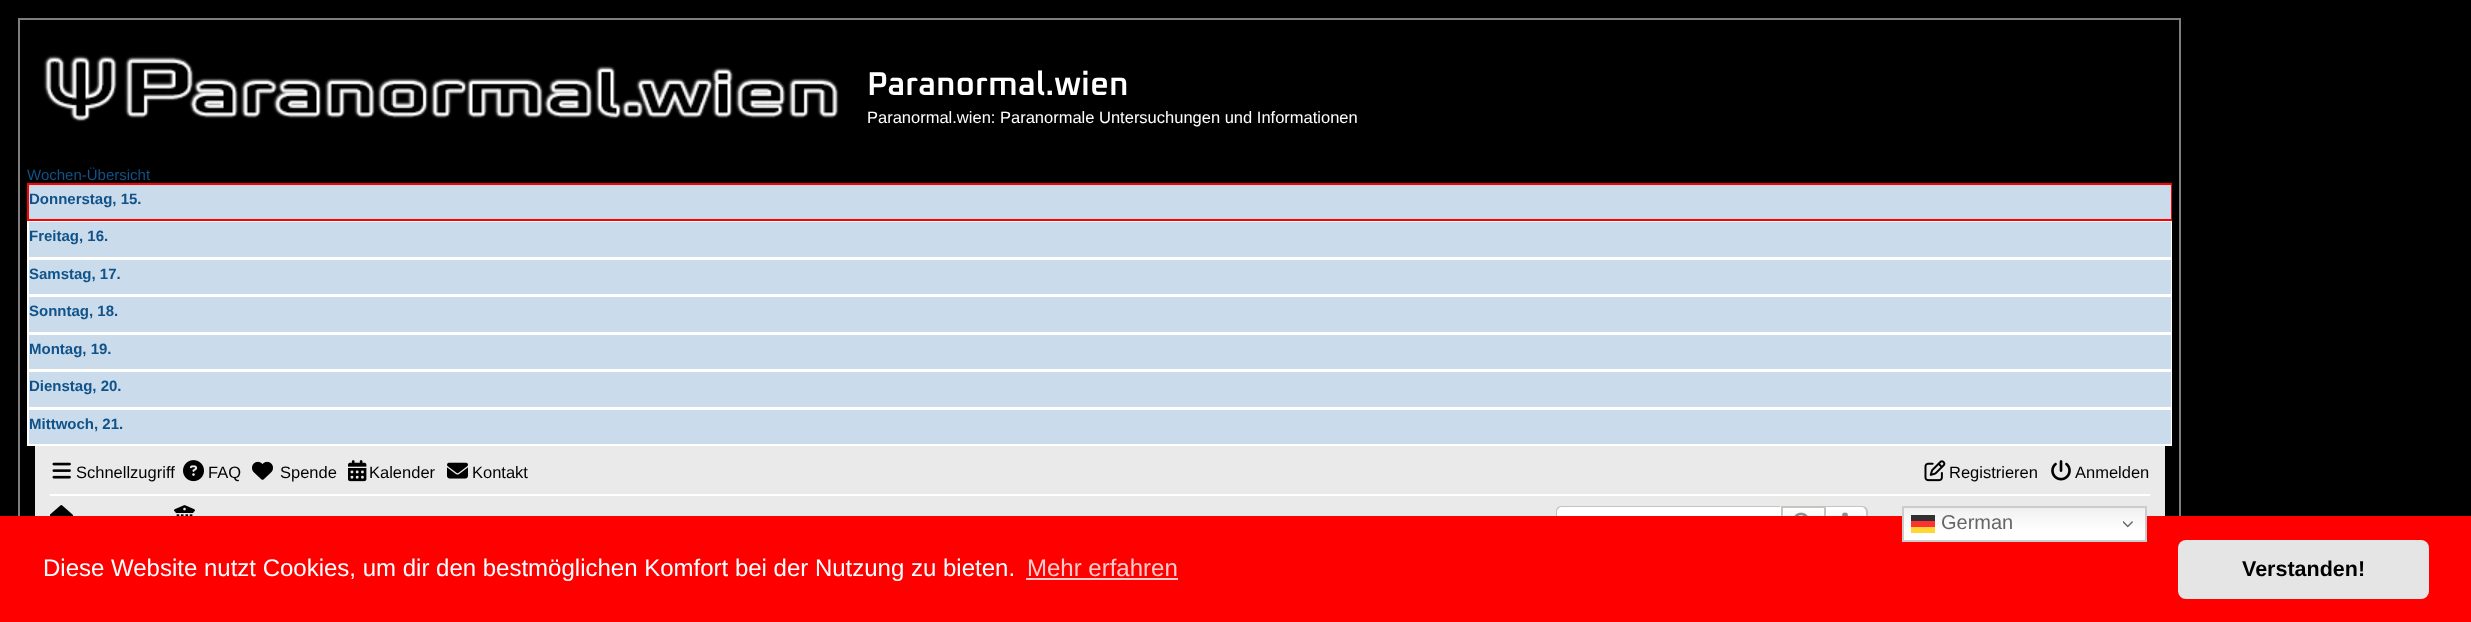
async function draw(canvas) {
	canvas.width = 2471;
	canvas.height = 622;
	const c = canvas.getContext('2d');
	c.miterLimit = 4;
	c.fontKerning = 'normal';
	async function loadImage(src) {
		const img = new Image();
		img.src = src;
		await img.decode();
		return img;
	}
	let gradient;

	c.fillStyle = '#000';
	c.fillRect(0, 0, 2471, 622);
	c.strokeStyle = '#7e7e7e';
	c.lineWidth = 2;
	c.strokeRect(19, 19, 2161, 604);
	c.drawImage(await loadImage('img1.png'), 43, 55, 796, 67);
	c.font = '600 33px Oxanium';
	c.fillStyle = '#fff';
	c.fillText('Paranormal.wien', 867, 95);
	c.font = '16.5px Liberation Sans';
	c.fillText('Paranormal.wien: Paranormale Untersuchungen und Informationen', 867, 123);
	c.font = '15px Liberation Sans';
	c.fillStyle = '#105289';
	c.fillText('Wochen-Übersicht', 27, 180);
	c.strokeStyle = '#f00';
	c.strokeRect(28, 184, 2143, 36);
	c.fillStyle = '#cadceb';
	c.fillRect(29, 185, 2142, 34);
	c.font = 'bold 15px Liberation Sans';
	c.fillStyle = '#105289';
	c.fillText('Donnerstag, 15.', 29, 204);
	c.fillStyle = '#fff';
	c.fillRect(27, 221, 2145, 37);
	c.fillStyle = '#cadceb';
	c.fillRect(29, 222, 2142, 35);
	c.fillStyle = '#105289';
	c.fillText('Freitag, 16.', 29, 241);
	c.strokeStyle = '#fff';
	c.strokeRect(28, 259, 2143, 36);
	c.fillStyle = '#cadceb';
	c.fillRect(29, 260, 2142, 34);
	c.fillStyle = '#105289';
	c.fillText('Samstag, 17.', 29, 279);
	c.strokeRect(28, 297, 2143, 35);
	c.fillStyle = '#cadceb';
	c.fillRect(29, 297, 2142, 35);
	c.fillStyle = '#105289';
	c.fillText('Sonntag, 18.', 29, 316);
	c.fillStyle = '#fff';
	c.fillRect(27, 333, 2145, 113);
	c.fillStyle = '#cadceb';
	c.fillRect(29, 335, 2142, 34);
	c.fillStyle = '#105289';
	c.fillText('Montag, 19.', 29, 354);
	c.fillStyle = '#cadceb';
	c.fillRect(29, 372, 2142, 35);
	c.fillStyle = '#105289';
	c.fillText('Dienstag, 20.', 29, 391);
	c.fillStyle = '#cadceb';
	c.fillRect(29, 410, 2142, 34);
	c.fillStyle = '#105289';
	c.fillText('Mittwoch, 21.', 29, 429);
	c.fillStyle = '#eaeaea';
	c.fillRect(35, 446, 2130, 70);
	c.drawImage(await loadImage('img2.png'), 52, 462, 19, 17);
	c.font = '16.5px Liberation Sans';
	c.fillStyle = '#000';
	c.fillText('Schnellzugriff', 76, 478);
	c.drawImage(await loadImage('img3.png'), 183, 460, 21, 22);
	c.fillText('FAQ', 208, 478);
	c.drawImage(await loadImage('img4.png'), 252, 461, 21, 19);
	c.fillText('Spende', 280, 478);
	c.drawImage(await loadImage('img5.png'), 348, 460, 19, 22);
	c.fillText('Kalender', 369, 478);
	c.drawImage(await loadImage('img6.png'), 447, 462, 21, 17);
	c.fillText('Kontakt', 472, 478);
	c.drawImage(await loadImage('img7.png'), 1924, 460, 22, 22);
	c.fillText('Registrieren', 1949, 478);
	c.drawImage(await loadImage('img8.png'), 2051, 460, 20, 21);
	c.fillText('Anmelden', 2075, 478);
	c.fillStyle = '#fff';
	c.fillRect(50, 494, 2100, 2);
	c.drawImage(await loadImage('img9.png'), 50, 505, 24, 11);
	c.drawImage(await loadImage('img10.png'), 174, 505, 21, 11);
	c.beginPath();
	c.roundRect(1557, 507, 224, 33, [5, 0, 0, 5]);
	c.fill();
	c.fillStyle = '#c7c3bf';
	c.beginPath();
	c.moveTo(1562, 506);
	c.lineTo(1780, 506);
	c.lineTo(1780, 542);
	c.lineTo(1562, 542);
	c.bezierCurveTo(1558, 542, 1556, 539, 1556, 536);
	c.lineTo(1556, 512);
	c.bezierCurveTo(1556, 508, 1558, 506, 1562, 506);
	c.closePath();
	c.moveTo(1562, 507);
	c.lineTo(1780, 507);
	c.lineTo(1780, 540);
	c.lineTo(1562, 540);
	c.bezierCurveTo(1559, 540, 1557, 538, 1557, 536);
	c.lineTo(1557, 512);
	c.bezierCurveTo(1557, 509, 1559, 507, 1562, 507);
	c.closePath();
	c.fill('evenodd');
	gradient = c.createLinearGradient(1803, 507, 1803, 540);
	gradient.addColorStop(0, '#fff');
	gradient.addColorStop(1, '#e9e9e9');
	c.fillStyle = gradient;
	c.fillRect(1784, 509, 38, 7);
	c.strokeRect(1783, 508, 40, 31);
	c.strokeStyle = '#c7c3bf';
	c.strokeRect(1782, 507, 43, 34);
	c.drawImage(await loadImage('img11.png'), 1794, 512, 14, 4);
	gradient = c.createLinearGradient(1846, 507, 1846, 540);
	gradient.addColorStop(0, '#fff');
	gradient.addColorStop(1, '#e9e9e9');
	c.fillStyle = gradient;
	c.beginPath();
	c.roundRect(1827, 508, 38, 31, [0, 4, 4, 0]);
	c.fill();
	c.strokeStyle = '#fff';
	c.stroke();
	c.fillStyle = '#c7c3bf';
	c.beginPath();
	c.moveTo(1826, 506);
	c.lineTo(1862, 506);
	c.bezierCurveTo(1865, 506, 1868, 508, 1868, 512);
	c.lineTo(1868, 536);
	c.bezierCurveTo(1868, 539, 1865, 542, 1862, 542);
	c.lineTo(1826, 542);
	c.closePath();
	c.moveTo(1826, 507);
	c.lineTo(1862, 507);
	c.bezierCurveTo(1864, 507, 1866, 509, 1866, 512);
	c.lineTo(1866, 536);
	c.bezierCurveTo(1866, 538, 1864, 540, 1862, 540);
	c.lineTo(1826, 540);
	c.closePath();
	c.fill('evenodd');
	c.drawImage(await loadImage('img12.png'), 1841, 512, 8, 4);
	c.fillStyle = '#f00';
	c.fillRect(0, 516, 2471, 106);
	gradient = c.createLinearGradient(2024, 506, 2024, 542);
	gradient.addColorStop(0, '#efefef');
	gradient.addColorStop(0.7, '#fff');
	c.fillStyle = gradient;
	c.fillRect(1904, 508, 241, 32);
	gradient = c.createLinearGradient(2024, 506, 2024, 542);
	gradient.addColorStop(0, '#fc3030');
	gradient.addColorStop(0.7, '#f33');
	c.fillStyle = gradient;
	c.fillRect(1911, 521, 24, 6);
	gradient = c.createLinearGradient(2024, 506, 2024, 542);
	gradient.addColorStop(0, '#303030');
	gradient.addColorStop(0.7, '#333');
	c.fillStyle = gradient;
	c.fillRect(1911, 515, 24, 6);
	c.strokeStyle = '#ccc';
	c.strokeRect(1903, 507, 243, 34);
	c.font = '20px Liberation Sans';
	c.fillStyle = '#666';
	c.fillText('German', 1941, 529);
	c.drawImage(await loadImage('img13.png'), 2123, 521, 10, 7);
	c.fillStyle = '#ffd633';
	c.fillRect(1911, 527, 24, 6);
	c.font = '24px Liberation Sans';
	c.fillStyle = '#fff';
	c.fillText('Diese Website nutzt Cookies, um dir den bestmöglichen Komfort bei der Nutzung zu bieten.', 43, 576);
	c.fillStyle = '#fcc';
	c.fillText('Mehr erfahren', 1027, 576);
	c.fillRect(1026, 578, 152, 2);
	c.fillStyle = '#e5e5e5';
	c.beginPath();
	c.roundRect(2178, 540, 251, 59, 8);
	c.fill();
	c.font = 'bold 21.5px Liberation Sans';
	c.fillStyle = '#000';
	c.fillText('Verstanden!', 2242, 576);
}

draw(document.querySelector('canvas'));
